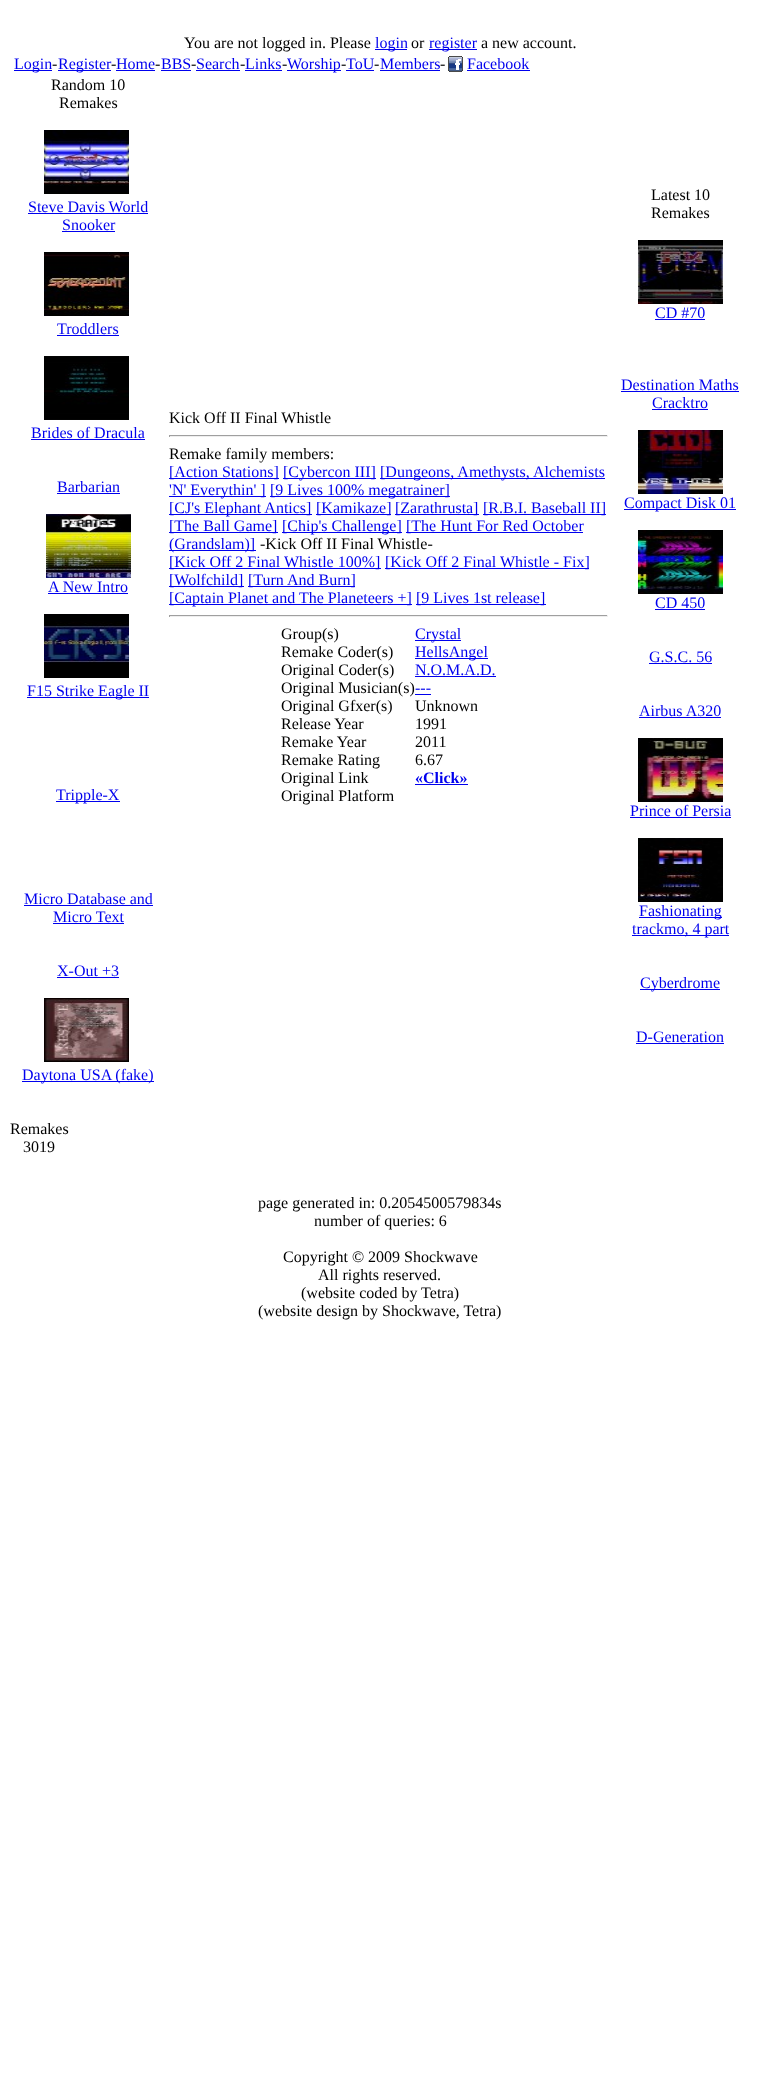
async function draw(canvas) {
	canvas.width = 760;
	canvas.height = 2096;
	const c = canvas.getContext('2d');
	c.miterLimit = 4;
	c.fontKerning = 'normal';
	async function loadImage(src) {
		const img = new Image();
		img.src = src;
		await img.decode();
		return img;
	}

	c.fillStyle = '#fff';
	c.fillRect(0, 0, 760, 2096);
	c.font = '16px Liberation Serif';
	c.fillStyle = '#000';
	c.fillText('You are not logged in. Please', 184, 48);
	c.fillStyle = '#00e';
	c.fillRect(375, 49, 32, 1);
	c.fillText('login', 375, 48);
	c.fillStyle = '#000';
	c.fillText('or', 411, 48);
	c.fillStyle = '#00e';
	c.fillRect(429, 49, 48, 1);
	c.fillText('register', 429, 48);
	c.fillStyle = '#000';
	c.fillText('a new account.', 481, 48);
	c.fillStyle = '#00e';
	c.fillRect(14, 70, 38, 1);
	c.fillText('Login', 14, 69);
	c.fillStyle = '#000';
	c.fillText('-', 52, 69);
	c.fillStyle = '#00e';
	c.fillRect(58, 70, 53, 1);
	c.fillText('Register', 58, 69);
	c.fillStyle = '#000';
	c.fillText('-', 111, 69);
	c.fillStyle = '#00e';
	c.fillText('Home', 116, 69);
	c.fillRect(116, 70, 39, 1);
	c.fillStyle = '#000';
	c.fillText('-', 155, 69);
	c.fillStyle = '#00e';
	c.fillText('BBS', 161, 69);
	c.fillRect(161, 70, 30, 1);
	c.fillStyle = '#000';
	c.fillText('-', 191, 69);
	c.fillStyle = '#00e';
	c.fillText('Search', 196, 69);
	c.fillRect(196, 70, 44, 1);
	c.fillStyle = '#000';
	c.fillText('-', 240, 69);
	c.fillStyle = '#00e';
	c.fillText('Links', 245, 69);
	c.fillRect(245, 70, 37, 1);
	c.fillStyle = '#000';
	c.fillText('-', 282, 69);
	c.fillStyle = '#00e';
	c.fillRect(287, 70, 54, 1);
	c.fillText('Worship', 287, 69);
	c.fillStyle = '#000';
	c.fillText('-', 341, 69);
	c.fillStyle = '#00e';
	c.fillText('ToU', 346, 69);
	c.fillRect(346, 70, 28, 1);
	c.fillStyle = '#000';
	c.fillText('-', 374, 69);
	c.fillStyle = '#00e';
	c.fillText('Members', 380, 69);
	c.fillRect(380, 70, 60, 1);
	c.fillStyle = '#000';
	c.fillText('-', 440, 69);
	c.drawImage(await loadImage('img1.png'), 448, 56, 15, 16);
	c.fillStyle = '#00e';
	c.fillText('Facebook', 467, 69);
	c.fillRect(467, 70, 63, 1);
	c.fillStyle = '#000';
	c.fillText('Random 10', 51, 90);
	c.fillText('Remakes', 59, 108);
	c.drawImage(await loadImage('img2.png'), 44, 130, 85, 64);
	c.fillStyle = '#00e';
	c.fillText('Steve Davis World', 28, 212);
	c.fillRect(28, 213, 120, 1);
	c.fillText('Snooker', 62, 230);
	c.fillRect(62, 231, 53, 1);
	c.drawImage(await loadImage('img3.png'), 44, 252, 85, 64);
	c.fillText('Troddlers', 57, 334);
	c.fillRect(57, 335, 62, 1);
	c.drawImage(await loadImage('img4.png'), 44, 356, 85, 64);
	c.fillText('Brides of Dracula', 31, 438);
	c.fillRect(31, 439, 114, 1);
	c.fillText('Barbarian', 57, 492);
	c.fillRect(57, 493, 63, 1);
	c.drawImage(await loadImage('img5.png'), 46, 514, 85, 64);
	c.fillText('A New Intro', 48, 592);
	c.fillRect(48, 593, 80, 1);
	c.drawImage(await loadImage('img6.png'), 44, 614, 85, 64);
	c.fillRect(27, 697, 122, 1);
	c.fillText('F15 Strike Eagle II', 27, 696);
	c.fillRect(56, 801, 64, 1);
	c.fillText('Tripple-X', 56, 800);
	c.fillText('Micro Database and', 24, 904);
	c.fillRect(24, 905, 129, 1);
	c.fillText('Micro Text', 53, 922);
	c.fillRect(53, 923, 71, 1);
	c.fillText('X-Out +3', 57, 976);
	c.fillRect(57, 977, 62, 1);
	c.drawImage(await loadImage('img7.png'), 44, 998, 85, 64);
	c.fillRect(22, 1081, 132, 1);
	c.fillText('Daytona USA (fake)', 22, 1080);
	c.fillStyle = '#000';
	for (const [text, x, y] of [
		['Remakes', 10, 1134],
		['3019', 23, 1152],
		['Kick Off II Final Whistle', 169, 423],
	]) {
		c.fillText(text, x, y);
	}
	for (const [x, y, w, h, color] of [
		[169, 435, 439, 1, '#9f9f9f'],
		[607, 435, 1, 2, '#eee'],
		[169, 436, 439, 1, '#eee'],
		[169, 435, 1, 2, '#9f9f9f'],
	]) {
		c.fillStyle = color;
		c.fillRect(x, y, w, h);
	}
	c.fillStyle = '#000';
	c.fillText('Remake family members:', 169, 459);
	c.fillStyle = '#00e';
	c.fillRect(169, 478, 110, 1);
	c.fillText('[Action Stations]', 169, 477);
	c.fillRect(283, 478, 93, 1);
	c.fillText('[Cybercon III]', 283, 477);
	c.fillRect(380, 478, 225, 1);
	c.fillText('[Dungeons, Amethysts, Alchemists', 380, 477);
	c.fillRect(169, 496, 97, 1);
	c.fillText('\'N\' Everythin\' ]', 169, 495);
	c.fillRect(270, 496, 180, 1);
	c.fillText('[9 Lives 100% megatrainer]', 270, 495);
	c.fillRect(169, 514, 143, 1);
	c.fillText('[CJ\'s Elephant Antics]', 169, 513);
	c.fillRect(316, 514, 75, 1);
	c.fillText('[Kamikaze]', 316, 513);
	c.fillRect(395, 514, 78, 1);
	c.fillText('[Zarathrusta', 395, 513);
	c.fillRect(473, 514, 6, 1);
	c.fillText(']', 473, 513);
	c.fillRect(483, 514, 123, 1);
	c.fillText('[R.B.I. Baseball II]', 483, 513);
	c.fillRect(169, 532, 109, 1);
	c.fillText('[The Ball Game]', 169, 531);
	c.fillRect(282, 532, 120, 1);
	c.fillText('[Chip\'s Challenge]', 282, 531);
	c.fillRect(406, 532, 177, 1);
	c.fillText('[The Hunt For Red October', 406, 531);
	c.fillRect(169, 550, 87, 1);
	c.fillText('(Grandslam)]', 169, 549);
	c.fillStyle = '#000';
	c.fillText('-Kick Off II Final Whistle-', 260, 549);
	c.fillStyle = '#00e';
	c.fillRect(169, 568, 212, 1);
	c.fillText('[Kick Off 2 Final Whistle 100%]', 169, 567);
	c.fillRect(385, 568, 204, 1);
	c.fillText('[Kick Off 2 Final Whistle - Fix]', 385, 567);
	c.fillRect(169, 586, 69, 1);
	c.fillText('[Wolfchild', 169, 585);
	c.fillRect(238, 586, 6, 1);
	c.fillText(']', 238, 585);
	c.fillRect(248, 586, 107, 1);
	c.fillText('[Turn And Burn]', 248, 585);
	c.fillRect(169, 604, 243, 1);
	c.fillText('[Captain Planet and The Planeteers +]', 169, 603);
	c.fillRect(416, 604, 130, 1);
	c.fillText('[9 Lives 1st release]', 416, 603);
	for (const [x, y, w, h, color] of [
		[169, 615, 439, 1, '#9f9f9f'],
		[607, 615, 1, 2, '#eee'],
		[169, 616, 439, 1, '#eee'],
		[169, 615, 1, 2, '#9f9f9f'],
	]) {
		c.fillStyle = color;
		c.fillRect(x, y, w, h);
	}
	c.fillStyle = '#000';
	c.fillText('Group(s)', 281, 639);
	c.fillStyle = '#00e';
	c.fillRect(415, 640, 46, 1);
	c.fillText('Crystal', 415, 639);
	c.fillStyle = '#000';
	c.fillText('Remake Coder(s)', 281, 657);
	c.fillStyle = '#00e';
	c.fillRect(415, 658, 73, 1);
	c.fillText('HellsAngel', 415, 657);
	c.fillStyle = '#000';
	c.fillText('Original Coder(s)', 281, 675);
	c.fillStyle = '#00e';
	c.fillText('N.O.M.A.D.', 415, 675);
	c.fillRect(415, 676, 81, 1);
	c.fillStyle = '#000';
	c.fillText('Original Musician(s)', 281, 693);
	c.fillStyle = '#00e';
	c.fillText('---', 415, 693);
	c.fillRect(415, 694, 16, 1);
	c.fillStyle = '#000';
	for (const [text, x, y] of [
		['Original Gfxer(s)', 281, 711],
		['Unknown', 415, 711],
		['Release Year', 281, 729],
		['1991', 415, 729],
		['Remake Year', 281, 747],
		['2011', 415, 747],
		['Remake Rating', 281, 765],
		['6.67', 415, 765],
		['Original Link', 281, 783],
	]) {
		c.fillText(text, x, y);
	}
	c.font = 'bold 16px Liberation Serif';
	c.fillStyle = '#00e';
	c.fillText('«Click»', 415, 783);
	c.fillRect(415, 784, 53, 1);
	c.font = '16px Liberation Serif';
	c.fillStyle = '#000';
	for (const [text, x, y] of [
		['Original Platform', 281, 801],
		['Latest 10', 651, 200],
		['Remakes', 651, 218],
	]) {
		c.fillText(text, x, y);
	}
	c.drawImage(await loadImage('img8.png'), 638, 240, 85, 64);
	c.fillStyle = '#00e';
	c.fillText('CD #70', 655, 318);
	c.fillRect(655, 319, 50, 1);
	c.fillText('Destination Maths', 621, 390);
	c.fillRect(621, 391, 118, 1);
	c.fillText('Cracktro', 652, 408);
	c.fillRect(652, 409, 56, 1);
	c.drawImage(await loadImage('img9.png'), 638, 430, 85, 64);
	c.fillRect(624, 509, 112, 1);
	c.fillText('Compact Disk 01', 624, 508);
	c.drawImage(await loadImage('img10.png'), 638, 530, 85, 64);
	c.fillText('CD 450', 655, 608);
	c.fillRect(655, 609, 50, 1);
	c.fillText('G.S.C. 56', 649, 662);
	c.fillRect(649, 663, 63, 1);
	c.fillText('Airbus A320', 639, 716);
	c.fillRect(639, 717, 82, 1);
	c.drawImage(await loadImage('img11.png'), 638, 738, 85, 64);
	c.fillText('Prince of Persia', 630, 816);
	c.fillRect(630, 817, 101, 1);
	c.drawImage(await loadImage('img12.png'), 638, 838, 85, 64);
	c.fillRect(639, 917, 83, 1);
	c.fillText('Fashionating', 639, 916);
	c.fillRect(632, 935, 97, 1);
	c.fillText('trackmo, 4 part', 632, 934);
	c.fillRect(640, 989, 80, 1);
	c.fillText('Cyberdrome', 640, 988);
	c.fillText('D-Generation', 636, 1042);
	c.fillRect(636, 1043, 88, 1);
	c.fillStyle = '#000';
	for (const [text, x, y] of [
		['page generated in: 0.2054500579834s', 258, 1208],
		['number of queries: 6', 314, 1226],
		['Copyright © 2009 Shockwave', 283, 1262],
		['All rights reserved.', 318, 1280],
		['(website coded by Tetra)', 301, 1298],
		['(website design by Shockwave, Tetra)', 258, 1316],
	]) {
		c.fillText(text, x, y);
	}
}

draw(document.querySelector('canvas'));
